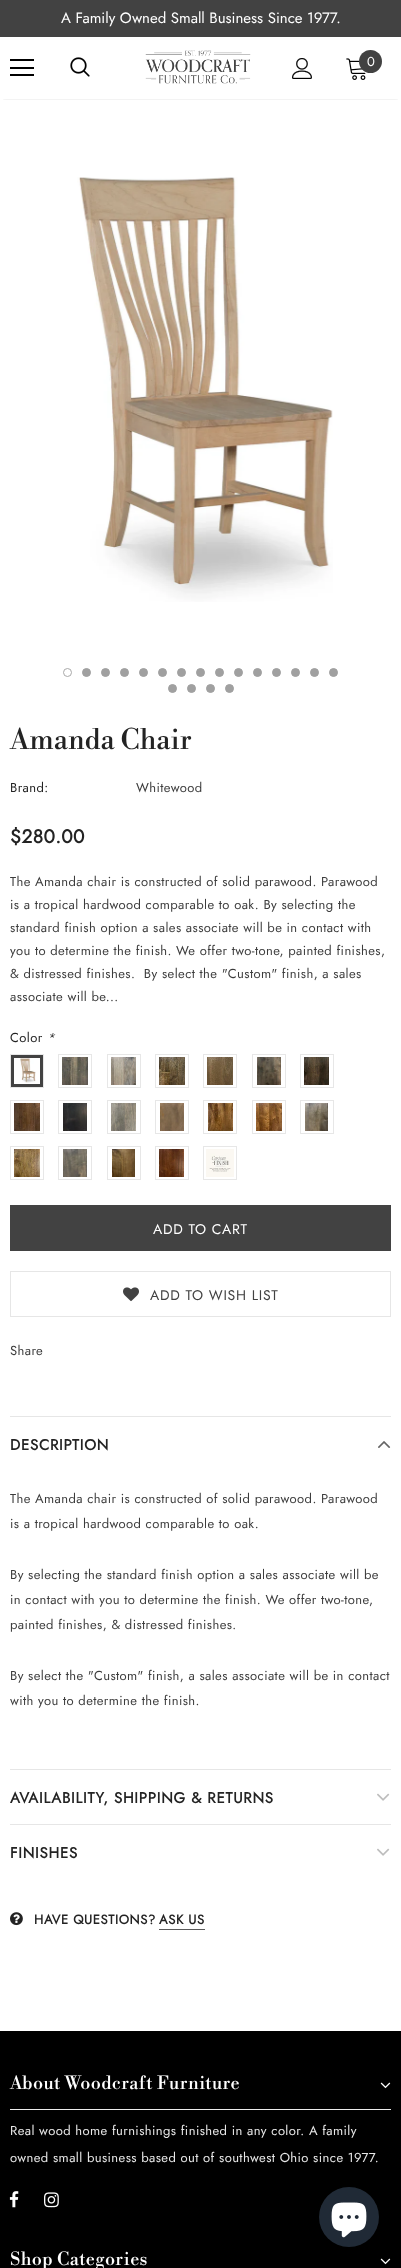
async function draw(canvas) {
	canvas.width = 401;
	canvas.height = 2268;
	const c = canvas.getContext('2d');
	c.miterLimit = 4;
	c.fontKerning = 'normal';
	async function loadImage(src) {
		const img = new Image();
		img.src = src;
		await img.decode();
		return img;
	}

	c.fillStyle = '#fff';
	c.fillRect(0, 0, 401, 2268);
	c.fillStyle = '#424242';
	c.fillRect(0, 0, 401, 37);
	c.font = '15px Jost';
	c.fillStyle = '#fff';
	c.fillText('A Family Owned Small Business Since 1977.', 61, 23);
	c.save();
	c.beginPath();
	c.rect(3, 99, 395, 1);
	c.clip();
	c.fillStyle = '#0000001f';
	c.filter = 'blur(1.5px)';
	c.beginPath();
	c.rect(3, 43, 395, 56);
	c.fill();
	c.filter = 'none';
	c.restore();
	for (const [x, y, w, h, color] of [
		[10, 59, 24, 2, '#000'],
		[10, 67, 24, 2, '#000'],
		[10, 74, 24, 2, '#000'],
	]) {
		c.fillStyle = color;
		c.fillRect(x, y, w, h);
	}
	c.drawImage(await loadImage('img1.png'), 70, 57, 20, 20);
	c.drawImage(await loadImage('img2.png'), 145, 50, 106, 34);
	c.drawImage(await loadImage('img3.png'), 292, 58, 20, 21);
	c.drawImage(await loadImage('img4.png'), 346, 58, 20, 22);
	c.fillStyle = '#424242';
	c.beginPath();
	c.arc(370.5, 61.5, 11.5, 0, 2 * Math.PI);
	c.fill();
	c.letterSpacing = '0.4px';
	c.font = '13px Jost';
	c.fillStyle = '#fff';
	c.fillText('0', 367, 66);
	c.drawImage(await loadImage('img5.png'), 77, 177, 256, 425);
	c.beginPath();
	c.arc(67.5, 672.5, 4, 0, 2 * Math.PI);
	c.strokeStyle = '#a9a9a9';
	c.stroke();
	c.fillStyle = '#a0a0a0';
	c.beginPath();
	c.arc(86.5, 672.5, 4, 0, 2 * Math.PI);
	c.fill();
	c.strokeStyle = '#a0a0a0';
	c.stroke();
	c.beginPath();
	c.arc(105.5, 672.5, 4, 0, 2 * Math.PI);
	c.fill();
	c.stroke();
	c.beginPath();
	c.arc(124.5, 672.5, 4, 0, 2 * Math.PI);
	c.fill();
	c.stroke();
	c.beginPath();
	c.arc(143.5, 672.5, 4, 0, 2 * Math.PI);
	c.fill();
	c.stroke();
	c.beginPath();
	c.arc(162.5, 672.5, 4, 0, 2 * Math.PI);
	c.fill();
	c.stroke();
	c.beginPath();
	c.arc(181.5, 672.5, 4, 0, 2 * Math.PI);
	c.fill();
	c.stroke();
	c.beginPath();
	c.arc(200.5, 672.5, 4, 0, 2 * Math.PI);
	c.fill();
	c.stroke();
	c.beginPath();
	c.arc(219.5, 672.5, 4, 0, 2 * Math.PI);
	c.fill();
	c.stroke();
	c.beginPath();
	c.arc(238.5, 672.5, 4, 0, 2 * Math.PI);
	c.fill();
	c.stroke();
	c.beginPath();
	c.arc(257.5, 672.5, 4, 0, 2 * Math.PI);
	c.fill();
	c.stroke();
	c.beginPath();
	c.arc(276.5, 672.5, 4, 0, 2 * Math.PI);
	c.fill();
	c.stroke();
	c.beginPath();
	c.arc(295.5, 672.5, 4, 0, 2 * Math.PI);
	c.fill();
	c.stroke();
	c.beginPath();
	c.arc(314.5, 672.5, 4, 0, 2 * Math.PI);
	c.fill();
	c.stroke();
	c.beginPath();
	c.arc(333.5, 672.5, 4, 0, 2 * Math.PI);
	c.fill();
	c.stroke();
	c.beginPath();
	c.arc(172.5, 688.5, 4, 0, 2 * Math.PI);
	c.fill();
	c.stroke();
	c.beginPath();
	c.arc(191.5, 688.5, 4, 0, 2 * Math.PI);
	c.fill();
	c.stroke();
	c.beginPath();
	c.arc(210.5, 688.5, 4, 0, 2 * Math.PI);
	c.fill();
	c.stroke();
	c.beginPath();
	c.arc(229.5, 688.5, 4, 0, 2 * Math.PI);
	c.fill();
	c.stroke();
	c.letterSpacing = '0px';
	c.font = '28px Libre Bodoni';
	c.fillStyle = '#232323';
	c.fillText('Amanda Chair', 10, 749);
	c.letterSpacing = '0.4px';
	c.font = '13px Jost';
	c.fillText('Brand:', 10, 792);
	c.fillStyle = '#3c3c3c';
	c.fillText('Whitewood', 136, 792);
	c.font = 'bold 19px Jost';
	c.fillStyle = '#232323';
	c.fillText('$280.00', 10, 843);
	c.font = '13px Jost';
	c.fillStyle = '#3c3c3c';
	for (const [text, x, y] of [
		['The Amanda chair is constructed of solid parawood. Parawood', 10, 886],
		['is a tropical hardwood comparable to oak. By selecting the', 10, 909],
		['standard finish option a sales associate will be in contact with', 10, 932],
		['you to determine the finish. We offer two-tone, painted finishes,', 10, 955],
		['& distressed finishes.  By select the "Custom" finish, a sales', 10, 978],
		['associate will be...', 10, 1001],
	]) {
		c.fillText(text, x, y);
	}
	c.fillStyle = '#232323';
	c.fillText('Color', 10, 1042);
	c.font = 'italic 13px Jost';
	c.fillStyle = '#424242';
	c.fillText('*', 47, 1042);
	c.strokeStyle = '#e7e7e7';
	c.strokeRect(10.5, 1054.5, 33, 33);
	c.drawImage(await loadImage('img6.png'), 20, 1058, 16, 25);
	c.strokeStyle = '#424242';
	c.lineWidth = 3;
	c.strokeRect(12.5, 1056.5, 29, 29);
	c.strokeStyle = '#e7e7e7';
	c.lineWidth = 1;
	c.strokeRect(58.5, 1054.5, 33, 33);
	c.drawImage(await loadImage('img7.png'), 62, 1057, 26, 28);
	c.strokeRect(107.5, 1054.5, 33, 33);
	c.drawImage(await loadImage('img8.png'), 111, 1057, 25, 28);
	c.strokeRect(155.5, 1054.5, 33, 33);
	c.drawImage(await loadImage('img9.png'), 159, 1057, 26, 28);
	c.strokeRect(203.5, 1054.5, 33, 33);
	c.drawImage(await loadImage('img10.png'), 207, 1057, 26, 28);
	c.strokeRect(252.5, 1054.5, 33, 33);
	c.drawImage(await loadImage('img11.png'), 257, 1057, 24, 28);
	c.strokeRect(300.5, 1054.5, 33, 33);
	c.drawImage(await loadImage('img12.png'), 304, 1057, 25, 28);
	c.strokeRect(10.5, 1100.5, 33, 33);
	c.drawImage(await loadImage('img13.png'), 14, 1103, 26, 28);
	c.strokeRect(58.5, 1100.5, 33, 33);
	c.drawImage(await loadImage('img14.png'), 63, 1103, 24, 28);
	c.strokeRect(107.5, 1100.5, 33, 33);
	c.drawImage(await loadImage('img15.png'), 111, 1103, 25, 28);
	c.strokeRect(155.5, 1100.5, 33, 33);
	c.drawImage(await loadImage('img16.png'), 160, 1103, 24, 28);
	c.strokeRect(203.5, 1100.5, 33, 33);
	c.drawImage(await loadImage('img17.png'), 208, 1103, 25, 28);
	c.strokeRect(252.5, 1100.5, 33, 33);
	c.drawImage(await loadImage('img18.png'), 256, 1103, 26, 28);
	c.strokeRect(300.5, 1100.5, 33, 33);
	c.drawImage(await loadImage('img19.png'), 305, 1103, 23, 28);
	c.strokeRect(10.5, 1146.5, 33, 33);
	c.drawImage(await loadImage('img20.png'), 14, 1149, 26, 28);
	c.strokeRect(58.5, 1146.5, 33, 33);
	c.drawImage(await loadImage('img21.png'), 63, 1149, 24, 28);
	c.strokeRect(107.5, 1146.5, 33, 33);
	c.drawImage(await loadImage('img22.png'), 112, 1149, 23, 28);
	c.strokeRect(155.5, 1146.5, 33, 33);
	c.drawImage(await loadImage('img23.png'), 159, 1149, 25, 28);
	c.strokeRect(203.5, 1146.5, 33, 33);
	c.drawImage(await loadImage('img24.png'), 206, 1149, 28, 28);
	c.fillRect(10, 1205, 381, 46);
	c.letterSpacing = '0.75px';
	c.font = '14px Jost';
	c.fillStyle = '#fff';
	c.fillText('ADD TO CART', 153, 1234);
	c.strokeStyle = '#e6e6e6';
	c.strokeRect(10.5, 1271.5, 380, 45);
	c.drawImage(await loadImage('img25.png'), 123, 1287, 16, 15);
	c.fillStyle = '#424242';
	c.fillText('ADD TO WISH LIST', 150, 1300);
	c.letterSpacing = '0.4px';
	c.font = '13px Jost';
	c.fillStyle = '#3c3c3c';
	c.fillText('Share', 10, 1355);
	c.fillStyle = '#e6e6e6';
	c.fillRect(10, 1416, 381, 1);
	c.letterSpacing = '0.75px';
	c.font = 'bold 15px Jost';
	c.fillStyle = '#232323';
	c.fillText('DESCRIPTION', 10, 1450);
	c.drawImage(await loadImage('img26.png'), 378, 1441, 13, 7);
	c.letterSpacing = '0.4px';
	c.font = '13px Jost';
	c.fillStyle = '#3c3c3c';
	for (const [text, x, y] of [
		['The Amanda chair is constructed of solid parawood. Parawood', 10, 1503],
		['is a tropical hardwood comparable to oak.', 10, 1528],
		['By selecting the standard finish option a sales associate will be', 10, 1579],
		['in contact with you to determine the finish. We offer two-tone,', 10, 1604],
		['painted finishes, & distressed finishes.', 10, 1629],
		['By select the "Custom" finish, a sales associate will be in contact', 10, 1680],
		['with you to determine the finish.', 10, 1705],
	]) {
		c.fillText(text, x, y);
	}
	c.fillStyle = '#e6e6e6';
	c.fillRect(10, 1769, 381, 1);
	c.letterSpacing = '0.75px';
	c.font = 'bold 15px Jost';
	c.fillStyle = '#232323';
	c.fillText('AVAILABILITY, SHIPPING & RETURNS', 10, 1803);
	c.drawImage(await loadImage('img27.png'), 377, 1793, 13, 8);
	c.fillStyle = '#e6e6e6';
	c.fillRect(10, 1824, 381, 1);
	c.fillStyle = '#232323';
	c.fillText('FINISHES', 10, 1858);
	c.drawImage(await loadImage('img27.png'), 377, 1848, 13, 8);
	c.drawImage(await loadImage('img28.png'), 10, 1912, 13, 14);
	c.letterSpacing = '0.6px';
	c.font = 'bold 13px Jost';
	c.fillText('HAVE QUESTIONS?', 34, 1924);
	c.fillText('ASK US', 159, 1924);
	for (const [x, y, w, h, color] of [
		[159, 1929, 46, 1, '#5a5a5a'],
		[0, 2031, 401, 237, '#000'],
		[10, 2109, 381, 1, '#ebebeb'],
	]) {
		c.fillStyle = color;
		c.fillRect(x, y, w, h);
	}
	c.letterSpacing = '0.35px';
	c.font = '18px Libre Bodoni';
	c.fillStyle = '#fff';
	c.fillText('About Woodcraft Furniture', 10, 2089);
	c.drawImage(await loadImage('img29.png'), 380, 2082, 11, 7);
	c.letterSpacing = '0.4px';
	c.font = '13px Jost';
	c.fillStyle = '#e8e8e8';
	c.fillText('Real wood home furnishings finished in any color. A family', 10, 2135);
	c.fillText('owned small business based out of southwest Ohio since 1977.', 10, 2162);
	c.drawImage(await loadImage('img30.png'), 9, 2191, 10, 17);
	c.drawImage(await loadImage('img31.png'), 44, 2192, 15, 16);
	c.letterSpacing = '0.35px';
	c.font = '18px Libre Bodoni';
	c.fillStyle = '#fff';
	c.fillText('Shop Categories', 10, 2265);
	c.drawImage(await loadImage('img29.png'), 380, 2258, 11, 7);
	c.fillStyle = '#202a36';
	c.beginPath();
	c.arc(349, 2217, 30, 0, 2 * Math.PI);
	c.fill();
	c.drawImage(await loadImage('img32.png'), 331, 2202, 36, 36);
}

draw(document.querySelector('canvas'));
